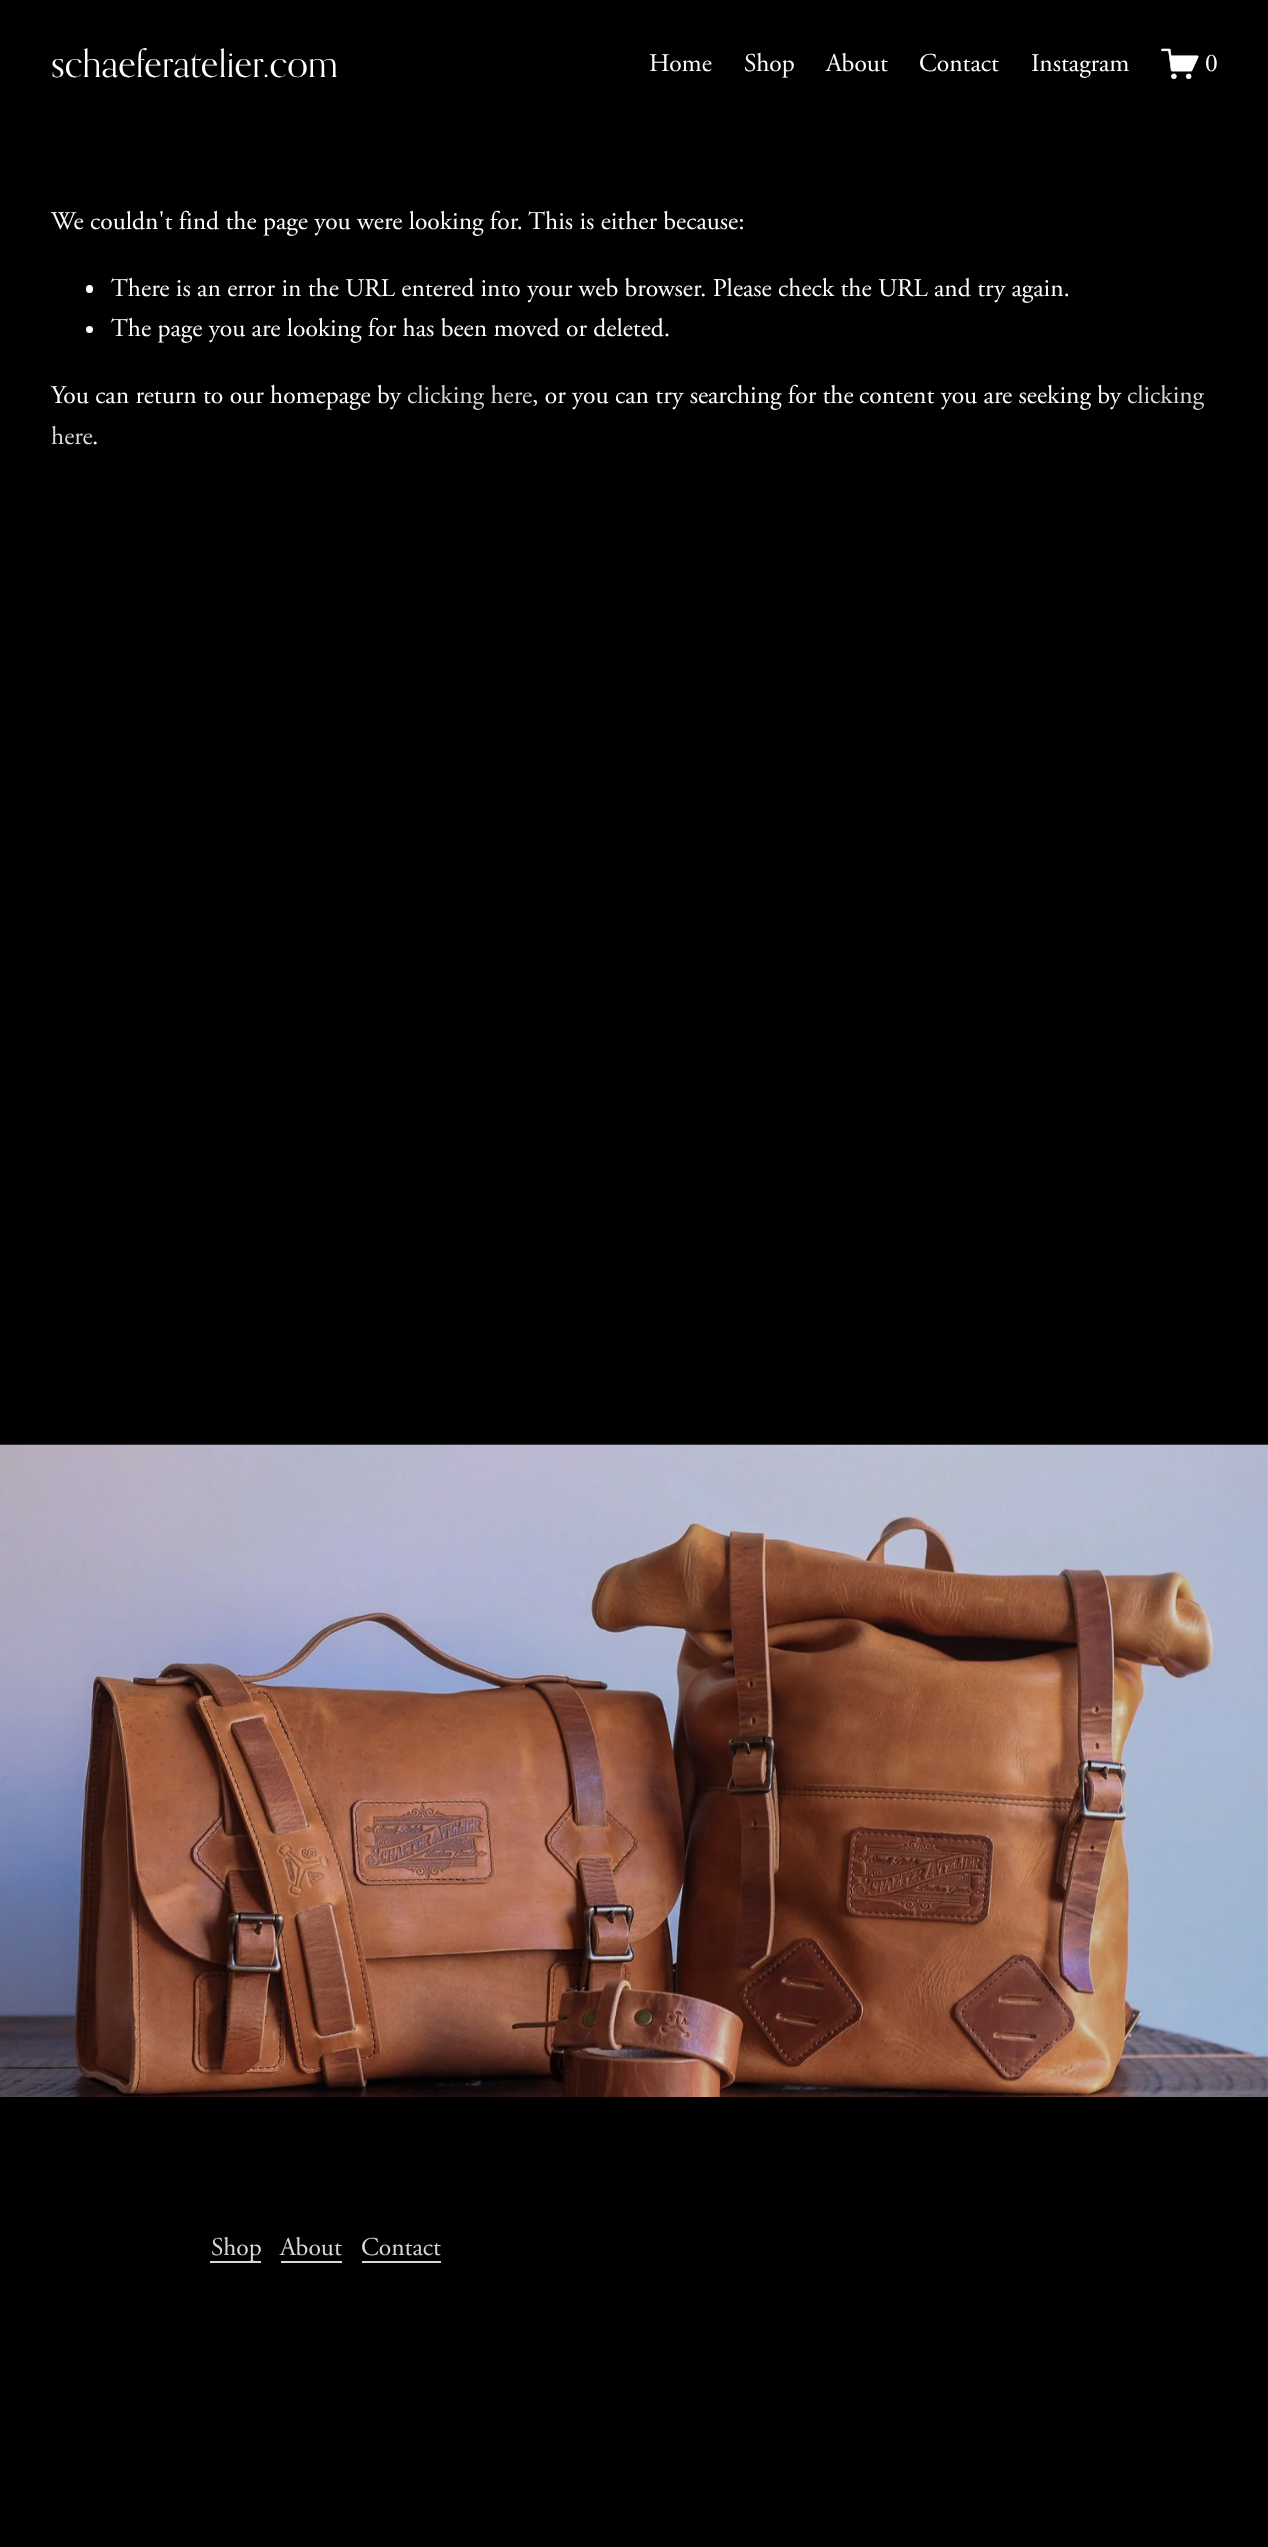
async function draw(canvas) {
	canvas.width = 1268;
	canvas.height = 2547;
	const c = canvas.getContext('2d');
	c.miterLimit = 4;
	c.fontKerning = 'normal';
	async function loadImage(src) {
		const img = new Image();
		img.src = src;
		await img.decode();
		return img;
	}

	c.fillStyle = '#000';
	c.fillRect(0, 0, 1268, 2547);
	c.font = '37.75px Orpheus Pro';
	c.fillStyle = '#fff';
	c.fillText('schaeferatelier.com', 51, 77);
	c.font = '25.55px Adobe Garamond';
	for (const [text, x, y] of [
		['Home', 649, 71],
		['Shop', 744, 71],
		['About', 826, 71],
		['Contact', 919, 71],
		['Instagram', 1031, 71],
	]) {
		c.fillText(text, x, y);
	}
	c.drawImage(await loadImage('img1.png'), 1161, 48, 38, 32);
	c.fillText('0', 1205, 71);
	c.fillText('We couldn\'t find the page you were looking for. This is either because:', 51, 229);
	c.beginPath();
	c.roundRect(86, 285, 7, 8, 3.5);
	c.fill();
	c.fillText('There is an error in the URL entered into your web browser. Please check the URL and try again.', 111, 296);
	c.beginPath();
	c.arc(89.5, 329.5, 3.5, 0, 2 * Math.PI);
	c.fill();
	c.fillText('The page you are looking for has been moved or deleted.', 111, 336);
	c.fillText('You can return to our homepage by', 51, 403);
	c.fillStyle = '#d9d9d9';
	c.fillText('clicking here', 407, 403);
	c.fillStyle = '#fff';
	c.fillText(', or you can try searching for the', 532, 403);
	c.fillText('content you are seeking by', 859, 403);
	c.fillStyle = '#d9d9d9';
	c.fillText('clicking', 1127, 403);
	c.fillText('here', 51, 444);
	c.fillStyle = '#fff';
	c.fillText('.', 92, 444);
	c.drawImage(await loadImage('img2.png'), 0, 1444, 1268, 653);
	c.fillStyle = '#d9d9d9';
	c.fillRect(210, 2261, 51, 2);
	c.fillText('Shop', 211, 2255);
	c.fillText('About', 280, 2255);
	c.fillRect(281, 2261, 61, 2);
	c.fillText('Contact', 361, 2255);
	c.fillRect(362, 2261, 79, 2);
}

draw(document.querySelector('canvas'));
